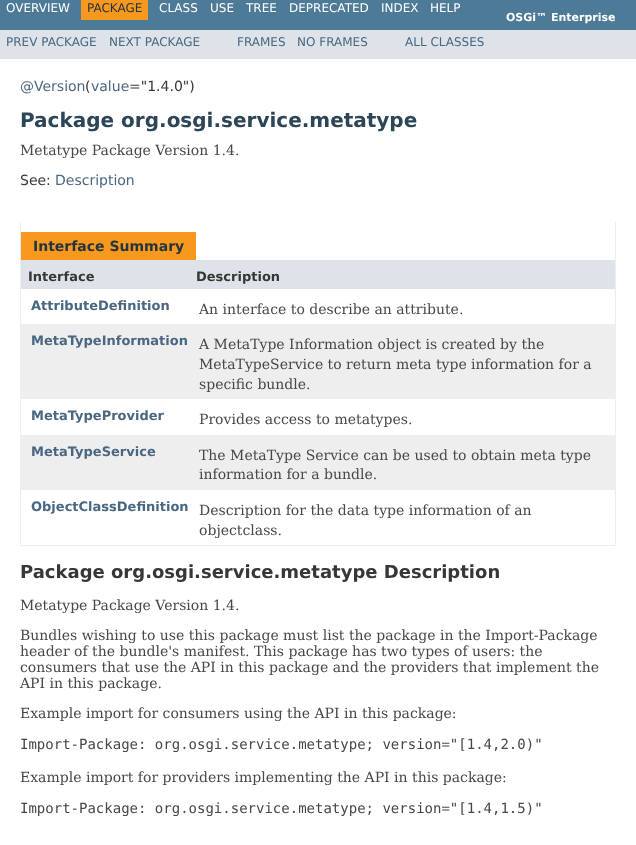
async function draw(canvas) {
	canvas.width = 636;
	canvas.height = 845;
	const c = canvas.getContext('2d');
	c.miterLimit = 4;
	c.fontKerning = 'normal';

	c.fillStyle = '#fff';
	c.fillRect(0, 0, 636, 845);
	c.fillStyle = '#4d7a97';
	c.fillRect(0, 0, 636, 30);
	c.font = '12px DejaVu Sans';
	c.fillStyle = '#fff';
	c.fillText('OVERVIEW', 6, 12);
	c.fillStyle = '#f8981d';
	c.fillRect(81, 0, 67, 20);
	c.fillStyle = '#253441';
	c.fillText('PACKAGE', 87, 12);
	c.fillStyle = '#fff';
	for (const [text, x, y] of [
		['CLASS', 159, 12],
		['USE', 210, 12],
		['TREE', 246, 12],
		['DEPRECATED', 289, 12],
		['INDEX', 381, 12],
		['HELP', 430, 12],
	]) {
		c.fillText(text, x, y);
	}
	c.font = 'bold 11px DejaVu Sans';
	c.fillText('OSGi™ Enterprise', 506, 21);
	c.fillStyle = '#dee3e9';
	c.fillRect(0, 30, 636, 29);
	c.font = '12px DejaVu Sans';
	c.fillStyle = '#4a6782';
	for (const [text, x, y] of [
		['PREV PACKAGE', 6, 46],
		['NEXT PACKAGE', 109, 46],
		['FRAMES', 237, 46],
		['NO FRAMES', 297, 46],
		['ALL CLASSES', 405, 46],
	]) {
		c.fillText(text, x, y);
	}
	c.font = '14px DejaVu Sans';
	c.fillText('@Version', 20, 91);
	c.fillStyle = '#353833';
	c.fillText('(', 85, 91);
	c.fillStyle = '#4a6782';
	c.fillText('value', 91, 91);
	c.fillStyle = '#353833';
	c.fillText('="1.4.0")', 129, 91);
	c.font = 'bold 20px DejaVu Sans';
	c.fillStyle = '#2c4557';
	c.fillText('Package org.osgi.service.metatype', 20, 127);
	c.font = '14px DejaVu Serif';
	c.fillStyle = '#474747';
	c.fillText('Metatype Package Version 1.4.', 20, 155);
	c.font = '14px DejaVu Sans';
	c.fillStyle = '#353833';
	c.fillText('See:', 20, 185);
	c.fillStyle = '#4a6782';
	c.fillText('Description', 55, 185);
	for (const [x, y, w, h, color] of [
		[615, 222, 1, 324, '#eee'],
		[20, 545, 596, 1, '#eee'],
		[20, 222, 1, 324, '#eee'],
		[21, 232, 175, 28, '#f8981d'],
	]) {
		c.fillStyle = color;
		c.fillRect(x, y, w, h);
	}
	c.font = 'bold 14px DejaVu Sans';
	c.fillStyle = '#253441';
	c.fillText('Interface Summary', 33, 251);
	c.fillStyle = '#dee3e9';
	c.fillRect(21, 260, 594, 29);
	c.font = 'bold 13px DejaVu Sans';
	c.fillStyle = '#353833';
	c.fillText('Interface', 28, 281);
	c.fillText('Description', 196, 281);
	c.fillStyle = '#4a6782';
	c.fillText('AttributeDefinition', 31, 310);
	c.font = '14px DejaVu Serif';
	c.fillStyle = '#474747';
	c.fillText('An interface to describe an attribute.', 199, 314);
	c.fillStyle = '#eeeeef';
	c.fillRect(21, 324, 594, 75);
	c.font = 'bold 13px DejaVu Sans';
	c.fillStyle = '#4a6782';
	c.fillText('MetaTypeInformation', 31, 345);
	c.font = '14px DejaVu Serif';
	c.fillStyle = '#474747';
	for (const [text, x, y] of [
		['A MetaType Information object is created by the', 199, 349],
		['MetaTypeService to return meta type information for a', 199, 369],
		['specific bundle.', 199, 389],
	]) {
		c.fillText(text, x, y);
	}
	c.font = 'bold 13px DejaVu Sans';
	c.fillStyle = '#4a6782';
	c.fillText('MetaTypeProvider', 31, 420);
	c.font = '14px DejaVu Serif';
	c.fillStyle = '#474747';
	c.fillText('Provides access to metatypes.', 199, 424);
	c.fillStyle = '#eeeeef';
	c.fillRect(21, 435, 594, 55);
	c.font = 'bold 13px DejaVu Sans';
	c.fillStyle = '#4a6782';
	c.fillText('MetaTypeService', 31, 456);
	c.font = '14px DejaVu Serif';
	c.fillStyle = '#474747';
	c.fillText('The MetaType Service can be used to obtain meta type', 199, 460);
	c.fillText('information for a bundle.', 199, 479);
	c.font = 'bold 13px DejaVu Sans';
	c.fillStyle = '#4a6782';
	c.fillText('ObjectClassDefinition', 31, 511);
	c.font = '14px DejaVu Serif';
	c.fillStyle = '#474747';
	c.fillText('Description for the data type information of an', 199, 515);
	c.fillText('objectclass.', 199, 535);
	c.font = 'bold 18px DejaVu Sans';
	c.fillStyle = '#353833';
	c.fillText('Package org.osgi.service.metatype Description', 20, 578);
	c.font = '14px DejaVu Serif';
	c.fillStyle = '#474747';
	for (const [text, x, y] of [
		['Metatype Package Version 1.4.', 20, 610],
		['Bundles wishing to use this package must list the package in the Import-Package', 20, 640],
		['header of the bundle\'s manifest. This package has two types of users: the', 20, 656],
		['consumers that use the API in this package and the providers that implement the', 20, 672],
		['API in this package.', 20, 688],
		['Example import for consumers using the API in this package:', 20, 718],
	]) {
		c.fillText(text, x, y);
	}
	c.font = '14px DejaVu Sans Mono';
	c.fillText('Import-Package: org.osgi.service.metatype; version="[1.4,2.0)"', 20, 749);
	c.font = '14px DejaVu Serif';
	c.fillText('Example import for providers implementing the API in this package:', 20, 782);
	c.font = '14px DejaVu Sans Mono';
	c.fillText('Import-Package: org.osgi.service.metatype; version="[1.4,1.5)"', 20, 813);
}

draw(document.querySelector('canvas'));
